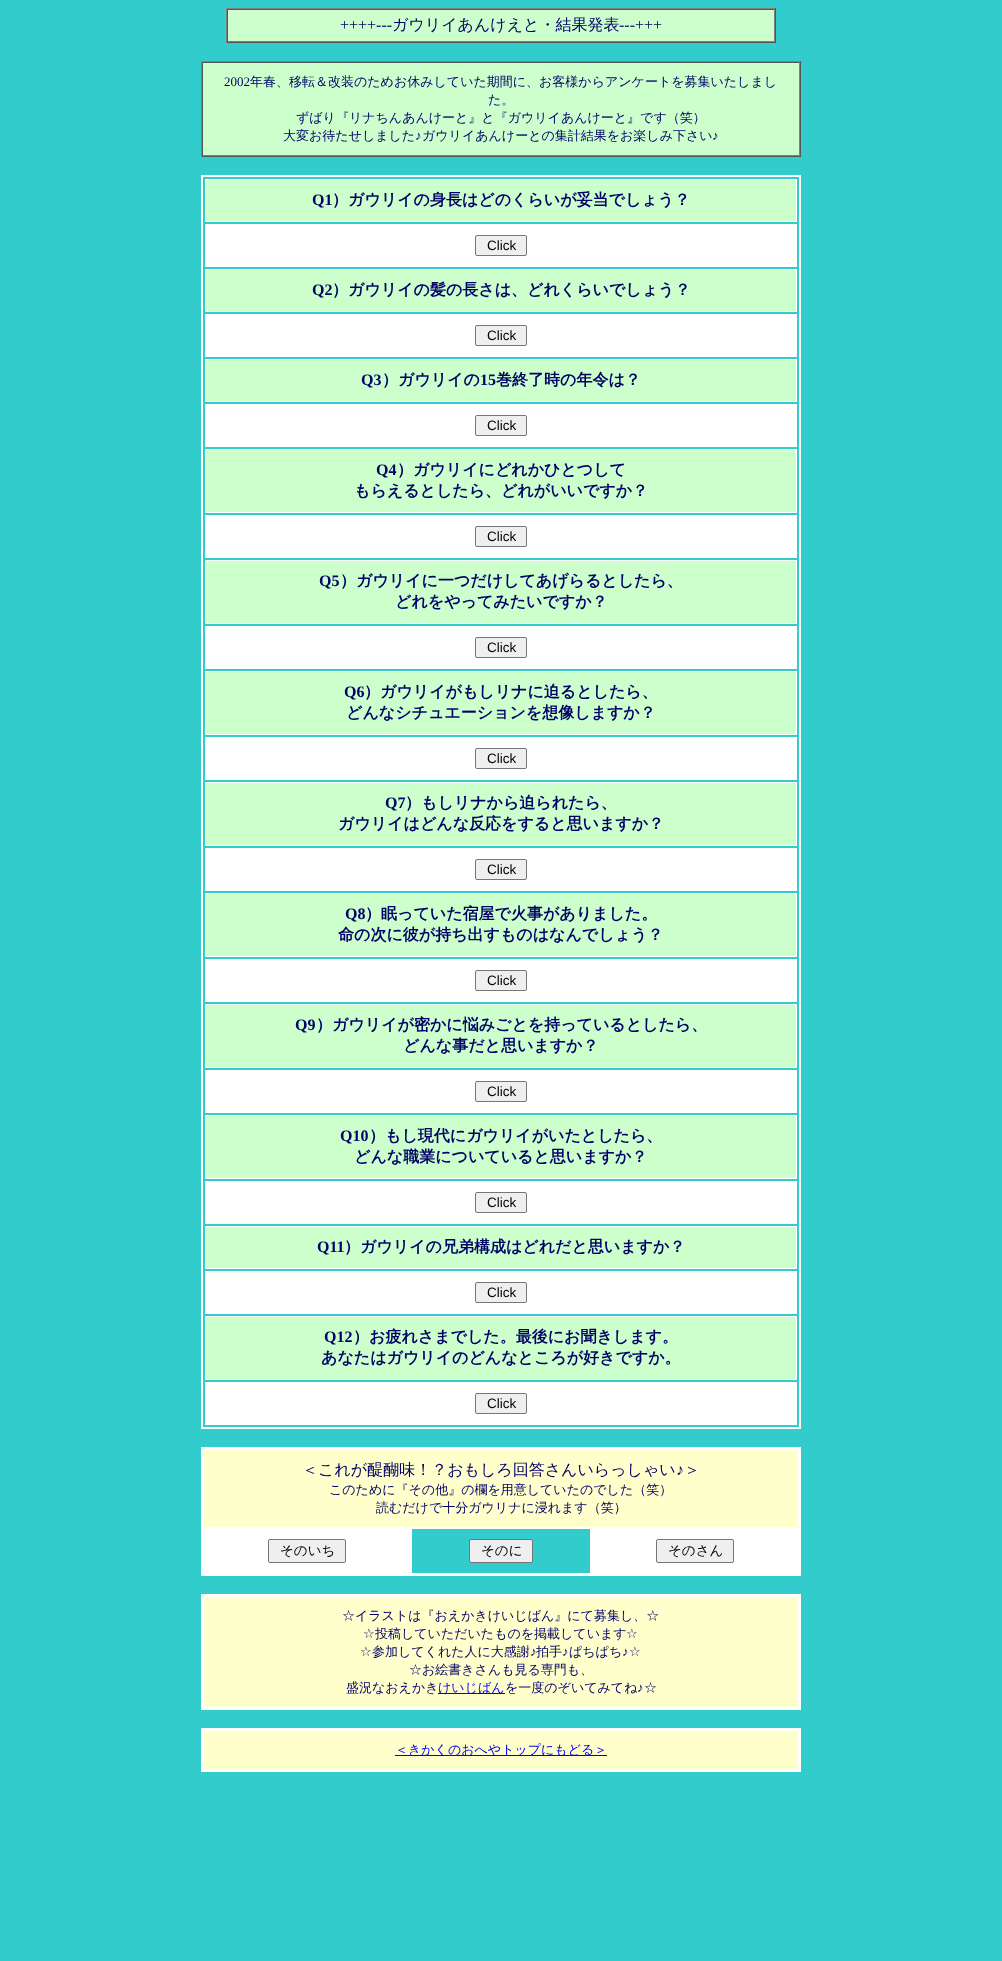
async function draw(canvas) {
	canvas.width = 1002;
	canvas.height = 1961;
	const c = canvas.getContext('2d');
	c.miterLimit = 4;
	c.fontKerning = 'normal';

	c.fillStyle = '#3cc';
	c.fillRect(0, 0, 1002, 1961);
	for (const [x, y, w, h, color] of [
		[226, 8, 550, 1, '#808080'],
		[775, 8, 1, 35, '#555'],
		[226, 42, 550, 1, '#555'],
		[226, 8, 1, 35, '#808080'],
		[228, 10, 546, 31, '#cfc'],
		[227, 9, 548, 1, '#555'],
		[774, 9, 1, 33, '#808080'],
		[227, 41, 548, 1, '#808080'],
		[227, 9, 1, 33, '#555'],
	]) {
		c.fillStyle = color;
		c.fillRect(x, y, w, h);
	}
	c.font = '16px Liberation Serif';
	c.fillStyle = '#006';
	c.fillText('++++---', 340, 30);
	c.font = '500 16px WenQuanYi Zen Hei';
	c.fillText('ガウリイあんけえと・結果発表', 392, 30);
	c.font = '16px Liberation Serif';
	c.fillText('---+++', 619, 30);
	for (const [x, y, w, h, color] of [
		[201, 61, 600, 1, '#808080'],
		[800, 61, 1, 96, '#555'],
		[201, 156, 600, 1, '#555'],
		[201, 61, 1, 96, '#808080'],
		[203, 63, 596, 92, '#cfc'],
		[202, 62, 598, 1, '#555'],
		[799, 62, 1, 94, '#808080'],
		[202, 155, 598, 1, '#808080'],
		[202, 62, 1, 94, '#555'],
	]) {
		c.fillStyle = color;
		c.fillRect(x, y, w, h);
	}
	c.font = '13px Liberation Serif';
	c.fillStyle = '#006';
	c.fillText('2002', 224, 86);
	c.font = '500 13px WenQuanYi Zen Hei';
	for (const [text, x, y] of [
		['年春、移転＆改装のためお休みしていた期間に、お客様からアンケートを募集いたしまし', 250, 86],
		['た。', 488, 104],
		['ずばり『リナちんあんけーと』と『ガウリイあんけーと』です（笑）', 296, 122],
		['大変お待たせしました', 283, 140],
	]) {
		c.fillText(text, x, y);
	}
	c.font = '13px Liberation Serif';
	c.fillText('♪', 415, 140);
	c.font = '500 13px WenQuanYi Zen Hei';
	c.fillText('ガウリイあんけーとの集計結果をお楽しみ下さい', 422, 140);
	c.font = '13px Liberation Serif';
	c.fillText('♪', 712, 140);
	c.strokeStyle = '#fff';
	c.lineWidth = 2;
	c.strokeRect(202, 176, 598, 1252);
	c.fillStyle = '#cfc';
	c.beginPath();
	c.rect(205.5, 179.5, 591, 42);
	c.fill();
	c.lineWidth = 1;
	c.stroke();
	c.font = 'bold 16px Liberation Serif';
	c.fillStyle = '#006';
	c.fillText('Q1', 312, 205);
	c.font = 'bold 16px WenQuanYi Zen Hei';
	c.fillText('）ガウリイの身長はどのくらいが妥当でしょう？', 332, 205);
	c.fillStyle = '#fff';
	c.fillRect(205, 224, 592, 43);
	c.fillStyle = '#efefef';
	c.beginPath();
	c.roundRect(475.5, 235.5, 51, 20, 1.5);
	c.fill();
	c.strokeStyle = '#767676';
	c.stroke();
	c.font = '13.5px Liberation Sans';
	c.fillStyle = '#000';
	c.fillText('Click', 487, 250);
	c.fillStyle = '#cfc';
	c.beginPath();
	c.rect(205.5, 269.5, 591, 42);
	c.fill();
	c.strokeStyle = '#fff';
	c.stroke();
	c.font = 'bold 16px Liberation Serif';
	c.fillStyle = '#006';
	c.fillText('Q2', 312, 295);
	c.font = 'bold 16px WenQuanYi Zen Hei';
	c.fillText('）ガウリイの髪の長さは、どれくらいでしょう？', 332, 295);
	c.fillStyle = '#fff';
	c.fillRect(205, 314, 592, 43);
	c.fillStyle = '#efefef';
	c.beginPath();
	c.roundRect(475.5, 325.5, 51, 20, 1.5);
	c.fill();
	c.strokeStyle = '#767676';
	c.stroke();
	c.font = '13.5px Liberation Sans';
	c.fillStyle = '#000';
	c.fillText('Click', 487, 340);
	c.fillStyle = '#cfc';
	c.beginPath();
	c.rect(205.5, 359.5, 591, 42);
	c.fill();
	c.strokeStyle = '#fff';
	c.stroke();
	c.font = 'bold 16px Liberation Serif';
	c.fillStyle = '#006';
	c.fillText('Q3', 361, 385);
	c.font = 'bold 16px WenQuanYi Zen Hei';
	c.fillText('）ガウリイの', 382, 385);
	c.font = 'bold 16px Liberation Serif';
	c.fillText('15', 480, 385);
	c.font = 'bold 16px WenQuanYi Zen Hei';
	c.fillText('巻終了時の年令は？', 496, 385);
	c.fillStyle = '#fff';
	c.fillRect(205, 404, 592, 43);
	c.fillStyle = '#efefef';
	c.beginPath();
	c.roundRect(475.5, 415.5, 51, 20, 1.5);
	c.fill();
	c.strokeStyle = '#767676';
	c.stroke();
	c.font = '13.5px Liberation Sans';
	c.fillStyle = '#000';
	c.fillText('Click', 487, 430);
	c.fillStyle = '#cfc';
	c.beginPath();
	c.rect(205.5, 449.5, 591, 63);
	c.fill();
	c.strokeStyle = '#fff';
	c.stroke();
	c.font = 'bold 16px Liberation Serif';
	c.fillStyle = '#006';
	c.fillText('Q4', 376, 475);
	c.font = 'bold 16px WenQuanYi Zen Hei';
	c.fillText('）ガウリイにどれかひとつして', 397, 475);
	c.fillText('もらえるとしたら、どれがいいですか？', 354, 496);
	c.fillStyle = '#fff';
	c.fillRect(205, 515, 592, 43);
	c.fillStyle = '#efefef';
	c.beginPath();
	c.roundRect(475.5, 526.5, 51, 20, 1.5);
	c.fill();
	c.strokeStyle = '#767676';
	c.stroke();
	c.font = '13.5px Liberation Sans';
	c.fillStyle = '#000';
	c.fillText('Click', 487, 541);
	c.fillStyle = '#cfc';
	c.beginPath();
	c.rect(205.5, 560.5, 591, 63);
	c.fill();
	c.strokeStyle = '#fff';
	c.stroke();
	c.font = 'bold 16px Liberation Serif';
	c.fillStyle = '#006';
	c.fillText('Q5', 319, 586);
	c.font = 'bold 16px WenQuanYi Zen Hei';
	c.fillText('）ガウリイに一つだけしてあげらるとしたら、', 340, 586);
	c.fillText('どれをやってみたいですか？', 395, 607);
	c.fillStyle = '#fff';
	c.fillRect(205, 626, 592, 43);
	c.fillStyle = '#efefef';
	c.beginPath();
	c.roundRect(475.5, 637.5, 51, 20, 1.5);
	c.fill();
	c.strokeStyle = '#767676';
	c.stroke();
	c.font = '13.5px Liberation Sans';
	c.fillStyle = '#000';
	c.fillText('Click', 487, 652);
	c.fillStyle = '#cfc';
	c.beginPath();
	c.rect(205.5, 671.5, 591, 63);
	c.fill();
	c.strokeStyle = '#fff';
	c.stroke();
	c.font = 'bold 16px Liberation Serif';
	c.fillStyle = '#006';
	c.fillText('Q6', 344, 697);
	c.font = 'bold 16px WenQuanYi Zen Hei';
	c.fillText('）ガウリイがもしリナに迫るとしたら、', 364, 697);
	c.fillText('どんなシチュエーションを想像しますか？', 346, 718);
	c.fillStyle = '#fff';
	c.fillRect(205, 737, 592, 43);
	c.fillStyle = '#efefef';
	c.beginPath();
	c.roundRect(475.5, 748.5, 51, 20, 1.5);
	c.fill();
	c.strokeStyle = '#767676';
	c.stroke();
	c.font = '13.5px Liberation Sans';
	c.fillStyle = '#000';
	c.fillText('Click', 487, 763);
	c.fillStyle = '#cfc';
	c.beginPath();
	c.rect(205.5, 782.5, 591, 63);
	c.fill();
	c.strokeStyle = '#fff';
	c.stroke();
	c.font = 'bold 16px Liberation Serif';
	c.fillStyle = '#006';
	c.fillText('Q7', 385, 808);
	c.font = 'bold 16px WenQuanYi Zen Hei';
	c.fillText('）もしリナから迫られたら、', 405, 808);
	c.fillText('ガウリイはどんな反応をすると思いますか？', 338, 829);
	c.fillStyle = '#fff';
	c.fillRect(205, 848, 592, 43);
	c.fillStyle = '#efefef';
	c.beginPath();
	c.roundRect(475.5, 859.5, 51, 20, 1.5);
	c.fill();
	c.strokeStyle = '#767676';
	c.stroke();
	c.font = '13.5px Liberation Sans';
	c.fillStyle = '#000';
	c.fillText('Click', 487, 874);
	c.fillStyle = '#cfc';
	c.beginPath();
	c.rect(205.5, 893.5, 591, 63);
	c.fill();
	c.strokeStyle = '#fff';
	c.stroke();
	c.font = 'bold 16px Liberation Serif';
	c.fillStyle = '#006';
	c.fillText('Q8', 345, 919);
	c.font = 'bold 16px WenQuanYi Zen Hei';
	c.fillText('）眠っていた宿屋で火事がありました。', 365, 919);
	c.fillText('命の次に彼が持ち出すものはなんでしょう？', 338, 940);
	c.fillStyle = '#fff';
	c.fillRect(205, 959, 592, 43);
	c.fillStyle = '#efefef';
	c.beginPath();
	c.roundRect(475.5, 970.5, 51, 20, 1.5);
	c.fill();
	c.strokeStyle = '#767676';
	c.stroke();
	c.font = '13.5px Liberation Sans';
	c.fillStyle = '#000';
	c.fillText('Click', 487, 985);
	c.fillStyle = '#cfc';
	c.beginPath();
	c.rect(205.5, 1004.5, 591, 63);
	c.fill();
	c.strokeStyle = '#fff';
	c.stroke();
	c.font = 'bold 16px Liberation Serif';
	c.fillStyle = '#006';
	c.fillText('Q9', 295, 1030);
	c.font = 'bold 16px WenQuanYi Zen Hei';
	c.fillText('）ガウリイが密かに悩みごとを持っているとしたら、', 316, 1030);
	c.fillText('どんな事だと思いますか？', 403, 1051);
	c.fillStyle = '#fff';
	c.fillRect(205, 1070, 592, 43);
	c.fillStyle = '#efefef';
	c.beginPath();
	c.roundRect(475.5, 1081.5, 51, 20, 1.5);
	c.fill();
	c.strokeStyle = '#767676';
	c.stroke();
	c.font = '13.5px Liberation Sans';
	c.fillStyle = '#000';
	c.fillText('Click', 487, 1096);
	c.fillStyle = '#cfc';
	c.beginPath();
	c.rect(205.5, 1115.5, 591, 63);
	c.fill();
	c.strokeStyle = '#fff';
	c.stroke();
	c.font = 'bold 16px Liberation Serif';
	c.fillStyle = '#006';
	c.fillText('Q10', 340, 1141);
	c.font = 'bold 16px WenQuanYi Zen Hei';
	c.fillText('）もし現代にガウリイがいたとしたら、', 369, 1141);
	c.fillText('どんな職業についていると思いますか？', 354, 1162);
	c.fillStyle = '#fff';
	c.fillRect(205, 1181, 592, 43);
	c.fillStyle = '#efefef';
	c.beginPath();
	c.roundRect(475.5, 1192.5, 51, 20, 1.5);
	c.fill();
	c.strokeStyle = '#767676';
	c.stroke();
	c.font = '13.5px Liberation Sans';
	c.fillStyle = '#000';
	c.fillText('Click', 487, 1207);
	c.fillStyle = '#cfc';
	c.beginPath();
	c.rect(205.5, 1226.5, 591, 42);
	c.fill();
	c.strokeStyle = '#fff';
	c.stroke();
	c.font = 'bold 16px Liberation Serif';
	c.fillStyle = '#006';
	c.fillText('Q11', 317, 1252);
	c.font = 'bold 16px WenQuanYi Zen Hei';
	c.fillText('）ガウリイの兄弟構成はどれだと思いますか？', 344, 1252);
	c.fillStyle = '#fff';
	c.fillRect(205, 1271, 592, 43);
	c.fillStyle = '#efefef';
	c.beginPath();
	c.roundRect(475.5, 1282.5, 51, 20, 1.5);
	c.fill();
	c.strokeStyle = '#767676';
	c.stroke();
	c.font = '13.5px Liberation Sans';
	c.fillStyle = '#000';
	c.fillText('Click', 487, 1297);
	c.fillStyle = '#cfc';
	c.beginPath();
	c.rect(205.5, 1316.5, 591, 63);
	c.fill();
	c.strokeStyle = '#fff';
	c.stroke();
	c.font = 'bold 16px Liberation Serif';
	c.fillStyle = '#006';
	c.fillText('Q12', 324, 1342);
	c.font = 'bold 16px WenQuanYi Zen Hei';
	c.fillText('）お疲れさまでした。最後にお聞きします。', 353, 1342);
	c.fillText('あなたはガウリイのどんなところが好きですか。', 321, 1363);
	c.fillStyle = '#fff';
	c.fillRect(205, 1382, 592, 43);
	c.fillStyle = '#efefef';
	c.beginPath();
	c.roundRect(475.5, 1393.5, 51, 20, 1.5);
	c.fill();
	c.strokeStyle = '#767676';
	c.stroke();
	c.font = '13.5px Liberation Sans';
	c.fillStyle = '#000';
	c.fillText('Click', 487, 1408);
	c.strokeStyle = '#fff';
	c.lineWidth = 2;
	c.strokeRect(202, 1448, 598, 127);
	c.fillStyle = '#ffc';
	c.beginPath();
	c.rect(203.5, 1449.5, 595, 78);
	c.fill();
	c.lineWidth = 1;
	c.stroke();
	c.font = '500 16px WenQuanYi Zen Hei';
	c.fillStyle = '#006';
	c.fillText('＜これが醍醐味！？おもしろ回答さんいらっしゃい', 302, 1475);
	c.font = '16px Liberation Serif';
	c.fillText('♪', 676, 1475);
	c.font = '500 16px WenQuanYi Zen Hei';
	c.fillText('＞', 684, 1475);
	c.font = '500 13px WenQuanYi Zen Hei';
	c.fillText('このために『その他』の欄を用意していたのでした（笑）', 329, 1494);
	c.fillText('読むだけで十分ガウリナに浸れます（笑）', 376, 1512);
	c.fillStyle = '#fff';
	c.fillRect(203, 1528, 208, 46);
	c.fillStyle = '#efefef';
	c.beginPath();
	c.roundRect(268.5, 1539.5, 77, 23, 1.5);
	c.fill();
	c.strokeStyle = '#767676';
	c.stroke();
	c.font = '500 13.5px WenQuanYi Zen Hei';
	c.fillStyle = '#000';
	c.fillText('そのいち', 280, 1555);
	c.strokeStyle = '#fff';
	c.strokeRect(411.5, 1528.5, 179, 45);
	c.fillStyle = '#efefef';
	c.beginPath();
	c.roundRect(469.5, 1539.5, 63, 23, 1.5);
	c.fill();
	c.strokeStyle = '#767676';
	c.stroke();
	c.fillStyle = '#000';
	c.fillText('そのに', 481, 1555);
	c.fillStyle = '#fff';
	c.fillRect(591, 1528, 208, 46);
	c.fillStyle = '#efefef';
	c.beginPath();
	c.roundRect(656.5, 1539.5, 77, 23, 1.5);
	c.fill();
	c.stroke();
	c.fillStyle = '#000';
	c.fillText('そのさん', 668, 1555);
	c.strokeStyle = '#fff';
	c.lineWidth = 2;
	c.strokeRect(202, 1595, 598, 114);
	c.fillStyle = '#ffc';
	c.beginPath();
	c.rect(203.5, 1596.5, 595, 111);
	c.fill();
	c.lineWidth = 1;
	c.stroke();
	c.font = '500 13px WenQuanYi Zen Hei';
	c.fillStyle = '#006';
	c.fillText('☆イラストは『おえかきけいじばん』にて募集し、☆', 342, 1620);
	c.font = '13px DejaVu Sans';
	c.fillText('☆', 363, 1638);
	c.font = '500 13px WenQuanYi Zen Hei';
	c.fillText('投稿していただいたものを掲載しています', 375, 1638);
	c.font = '13px DejaVu Sans';
	c.fillText('☆', 626, 1638);
	c.fillText('☆', 360, 1656);
	c.font = '500 13px WenQuanYi Zen Hei';
	c.fillText('参加してくれた人に大感謝', 372, 1656);
	c.font = '13px Liberation Serif';
	c.fillText('♪', 530, 1656);
	c.font = '500 13px WenQuanYi Zen Hei';
	c.fillText('拍手', 536, 1656);
	c.font = '13px Liberation Serif';
	c.fillText('♪', 562, 1656);
	c.font = '500 13px WenQuanYi Zen Hei';
	c.fillText('ぱちぱち', 569, 1656);
	c.font = '13px Liberation Serif';
	c.fillText('♪', 622, 1656);
	c.font = '13px DejaVu Sans';
	c.fillText('☆', 629, 1656);
	c.font = '500 13px WenQuanYi Zen Hei';
	c.fillText('☆お絵書きさんも見る専門も、', 409, 1674);
	c.fillText('盛況なおえかき', 346, 1692);
	c.fillStyle = '#00e';
	c.fillRect(438, 1693, 67, 1);
	c.fillText('けいじばん', 438, 1692);
	c.fillStyle = '#006';
	c.fillText('を一度のぞいてみてね', 505, 1692);
	c.font = '13px Liberation Serif';
	c.fillText('♪', 637, 1692);
	c.font = '500 13px WenQuanYi Zen Hei';
	c.fillText('☆', 644, 1692);
	c.lineWidth = 2;
	c.strokeRect(202, 1729, 598, 42);
	c.fillStyle = '#ffc';
	c.beginPath();
	c.rect(203.5, 1730.5, 595, 39);
	c.fill();
	c.lineWidth = 1;
	c.stroke();
	c.fillStyle = '#00e';
	c.fillRect(395, 1755, 212, 1);
	c.fillText('＜きかくのおへやトップにもどる＞', 395, 1754);
}

draw(document.querySelector('canvas'));
